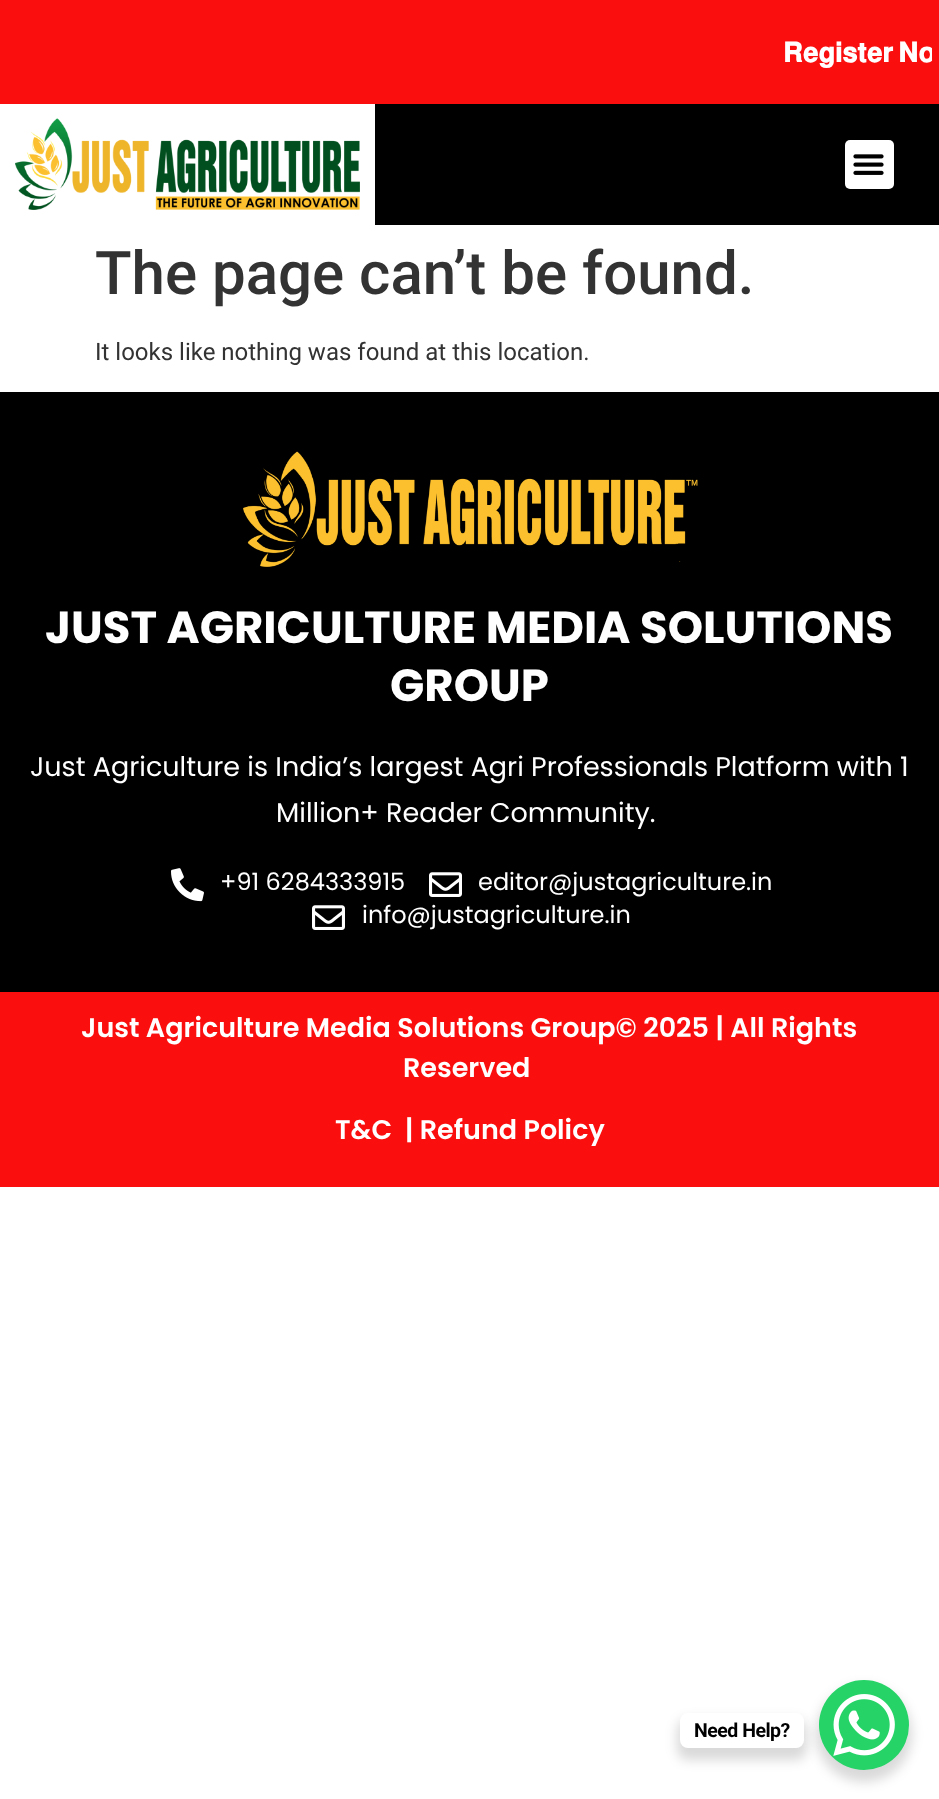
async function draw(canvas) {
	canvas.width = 939;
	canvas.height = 1799;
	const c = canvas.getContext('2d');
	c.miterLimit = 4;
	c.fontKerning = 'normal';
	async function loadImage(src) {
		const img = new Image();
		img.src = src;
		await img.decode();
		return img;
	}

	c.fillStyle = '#fff';
	c.fillRect(0, 0, 939, 1799);
	c.fillStyle = '#fb0e0e';
	c.fillRect(0, 0, 939, 104);
	c.font = 'bold 27px FreeSans';
	c.fillStyle = '#fff';
	c.fillText('𝐑𝐞𝐠𝐢𝐬𝐭𝐞𝐫', 783, 62);
	c.save();
	c.beginPath();
	c.rect(8, 23, 924, 58);
	c.clip();
	c.fillText('𝐍𝐨', 898, 62);
	c.restore();
	c.fillStyle = '#000';
	c.fillRect(375, 104, 564, 121);
	c.drawImage(await loadImage('img1.png'), 15, 118, 345, 92);
	c.fillStyle = '#fff';
	c.beginPath();
	c.roundRect(845, 140, 49, 49, 5);
	c.fill();
	c.drawImage(await loadImage('img2.png'), 853, 154, 31, 21);
	c.font = '500 60px Roboto';
	c.fillStyle = '#333';
	c.fillText('The page can’t be found.', 95, 294);
	c.font = '24px Roboto';
	c.fillText('It looks like nothing was found at this location.', 95, 360);
	c.fillStyle = '#000';
	c.fillRect(0, 392, 939, 600);
	c.drawImage(await loadImage('img3.png'), 243, 451, 455, 116);
	c.font = 'bold 45px Poppins';
	c.fillStyle = '#fff';
	c.fillText('JUST AGRICULTURE MEDIA SOLUTIONS', 45, 643);
	c.fillText('GROUP', 390, 701);
	c.font = '27px Poppins';
	c.fillText('Just Agriculture is India’s largest Agri Professionals Platform with 1', 30, 776);
	c.fillText('Million+ Reader Community.', 276, 822);
	c.drawImage(await loadImage('img4.png'), 171, 868, 33, 34);
	c.font = '24px Poppins';
	c.fillText('+91 6284333915', 220, 890);
	c.drawImage(await loadImage('img5.png'), 429, 872, 33, 25);
	c.fillText('editor@justagriculture.in', 478, 890);
	c.drawImage(await loadImage('img5.png'), 312, 905, 33, 25);
	c.fillText('info@justagriculture.in', 362, 923);
	c.fillStyle = '#fb0e0e';
	c.fillRect(0, 992, 939, 195);
	c.font = '600 27px Poppins';
	c.fillStyle = '#fff';
	for (const [text, x, y] of [
		['Just Agriculture Media Solutions Group© 2025 | All Rights', 81, 1037],
		['Reserved', 403, 1077],
		['T&C', 335, 1139],
		['| Refund Policy', 405, 1139],
	]) {
		c.fillText(text, x, y);
	}
	c.fillStyle = '#00000026';
	c.filter = 'blur(6px)';
	c.beginPath();
	c.roundRect(816, 1686, 96, 96, 48);
	c.fill();
	c.filter = 'none';
	c.fillStyle = '#25d366';
	c.beginPath();
	c.arc(864, 1725, 45, 0, 2 * Math.PI);
	c.fill();
	c.fillStyle = '#00000026';
	c.filter = 'blur(6px)';
	c.beginPath();
	c.roundRect(677, 1719, 130, 41, 11);
	c.fill();
	c.filter = 'none';
	c.fillStyle = '#fff';
	c.beginPath();
	c.roundRect(680, 1713, 124, 35, 8);
	c.fill();
	c.letterSpacing = '-0.5px';
	c.font = 'bold 19.5px Roboto';
	c.fillStyle = '#000';
	c.fillText('Need Help?', 694, 1737);
	c.drawImage(await loadImage('img6.png'), 833, 1694, 62, 62);
}

draw(document.querySelector('canvas'));
